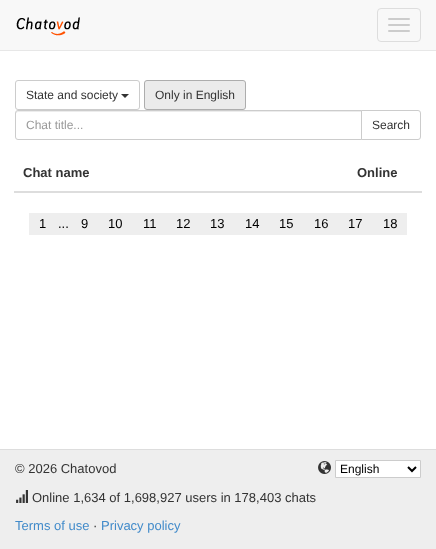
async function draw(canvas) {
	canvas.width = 436;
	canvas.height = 549;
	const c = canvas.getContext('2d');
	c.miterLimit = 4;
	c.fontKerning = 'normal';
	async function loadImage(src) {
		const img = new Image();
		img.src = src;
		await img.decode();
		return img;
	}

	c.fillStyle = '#fff';
	c.fillRect(0, 0, 436, 549);
	c.fillStyle = '#f8f8f8';
	c.fillRect(0, 0, 436, 50);
	c.fillStyle = '#e7e7e7';
	c.fillRect(0, 50, 436, 1);
	c.drawImage(await loadImage('img1.png'), 16, 17, 64, 19);
	c.beginPath();
	c.roundRect(377.5, 8.5, 43, 33, 3.5);
	c.strokeStyle = '#ddd';
	c.stroke();
	c.fillStyle = '#ccc';
	c.beginPath();
	c.roundRect(388, 18, 22, 2, 1);
	c.fill();
	c.beginPath();
	c.roundRect(388, 24, 22, 2, 1);
	c.fill();
	c.beginPath();
	c.roundRect(388, 30, 22, 2, 1);
	c.fill();
	c.beginPath();
	c.roundRect(15.5, 80.5, 124, 29, 2.5);
	c.strokeStyle = '#ccc';
	c.stroke();
	c.font = '12px Liberation Sans';
	c.fillStyle = '#333';
	c.fillText('State and society', 26, 99);
	c.beginPath();
	c.moveTo(121, 94);
	c.lineTo(129, 94);
	c.lineTo(125, 98);
	c.closePath();
	c.fill();
	c.fillStyle = '#ebebeb';
	c.beginPath();
	c.roundRect(144.5, 80.5, 101, 29, 2.5);
	c.fill();
	c.strokeStyle = '#adadad';
	c.stroke();
	c.fillStyle = '#333';
	c.fillText('Only in English', 155, 99);
	c.fillStyle = '#ececec';
	c.beginPath();
	c.moveTo(18, 112);
	c.lineTo(361, 112);
	c.lineTo(361, 111);
	c.lineTo(18, 111);
	c.lineTo(16, 112);
	c.lineTo(16, 114);
	c.bezierCurveTo(16, 113, 17, 112, 18, 112);
	c.closePath();
	c.fill();
	c.beginPath();
	c.roundRect(15.5, 110.5, 346, 29, [2.5, 0, 0, 2.5]);
	c.strokeStyle = '#ccc';
	c.stroke();
	c.fillStyle = '#999';
	c.fillText('Chat title...', 26, 129);
	c.fillStyle = '#fff';
	c.beginPath();
	c.roundRect(361.5, 110.5, 59, 29, [0, 2.5, 2.5, 0]);
	c.fill();
	c.stroke();
	c.fillStyle = '#333';
	c.fillText('Search', 372, 129);
	c.font = 'bold 13px Liberation Sans';
	c.fillText('Chat name', 23, 177);
	c.fillStyle = '#ddd';
	c.fillRect(14, 191, 408, 2);
	c.fillStyle = '#333';
	c.fillText('Online', 357, 177);
	c.fillStyle = '#eee';
	c.fillRect(29, 213, 378, 22);
	c.font = '13px Liberation Sans';
	c.fillStyle = '#000';
	for (const [text, x, y] of [
		['1', 39, 228],
		['...', 58, 228],
		['9', 81, 228],
		['10', 108, 228],
		['11', 143, 228],
		['12', 176, 228],
		['13', 210, 228],
		['14', 245, 228],
		['15', 279, 228],
		['16', 314, 228],
		['17', 348, 228],
		['18', 383, 228],
	]) {
		c.fillText(text, x, y);
	}
	c.fillStyle = '#eee';
	c.fillRect(0, 450, 436, 99);
	c.fillStyle = '#ddd';
	c.fillRect(0, 449, 436, 1);
	c.fillStyle = '#333';
	c.fillText('© 2026 Chatovod', 15, 473);
	c.drawImage(await loadImage('img2.png'), 16, 490, 12, 13);
	c.fillText('Online 1,634 of 1,698,927 users in 178,403 chats', 32, 502);
	c.fillStyle = '#428bca';
	c.fillText('Terms of use', 15, 530);
	c.fillStyle = '#333';
	c.fillText('·', 93, 530);
	c.fillStyle = '#428bca';
	c.fillText('Privacy policy', 101, 530);
	c.drawImage(await loadImage('img3.png'), 318, 461, 13, 13);
	c.fillStyle = '#fff';
	c.beginPath();
	c.rect(335.5, 460.5, 85, 17);
	c.fill();
	c.stroke();
	c.beginPath();
	c.moveTo(408, 467);
	c.lineTo(412, 471);
	c.lineTo(416, 467);
	c.strokeStyle = '#000';
	c.lineWidth = 2;
	c.stroke();
	c.font = '12px Liberation Sans';
	c.fillStyle = '#000';
	c.fillText('English', 340, 473);
}

draw(document.querySelector('canvas'));
